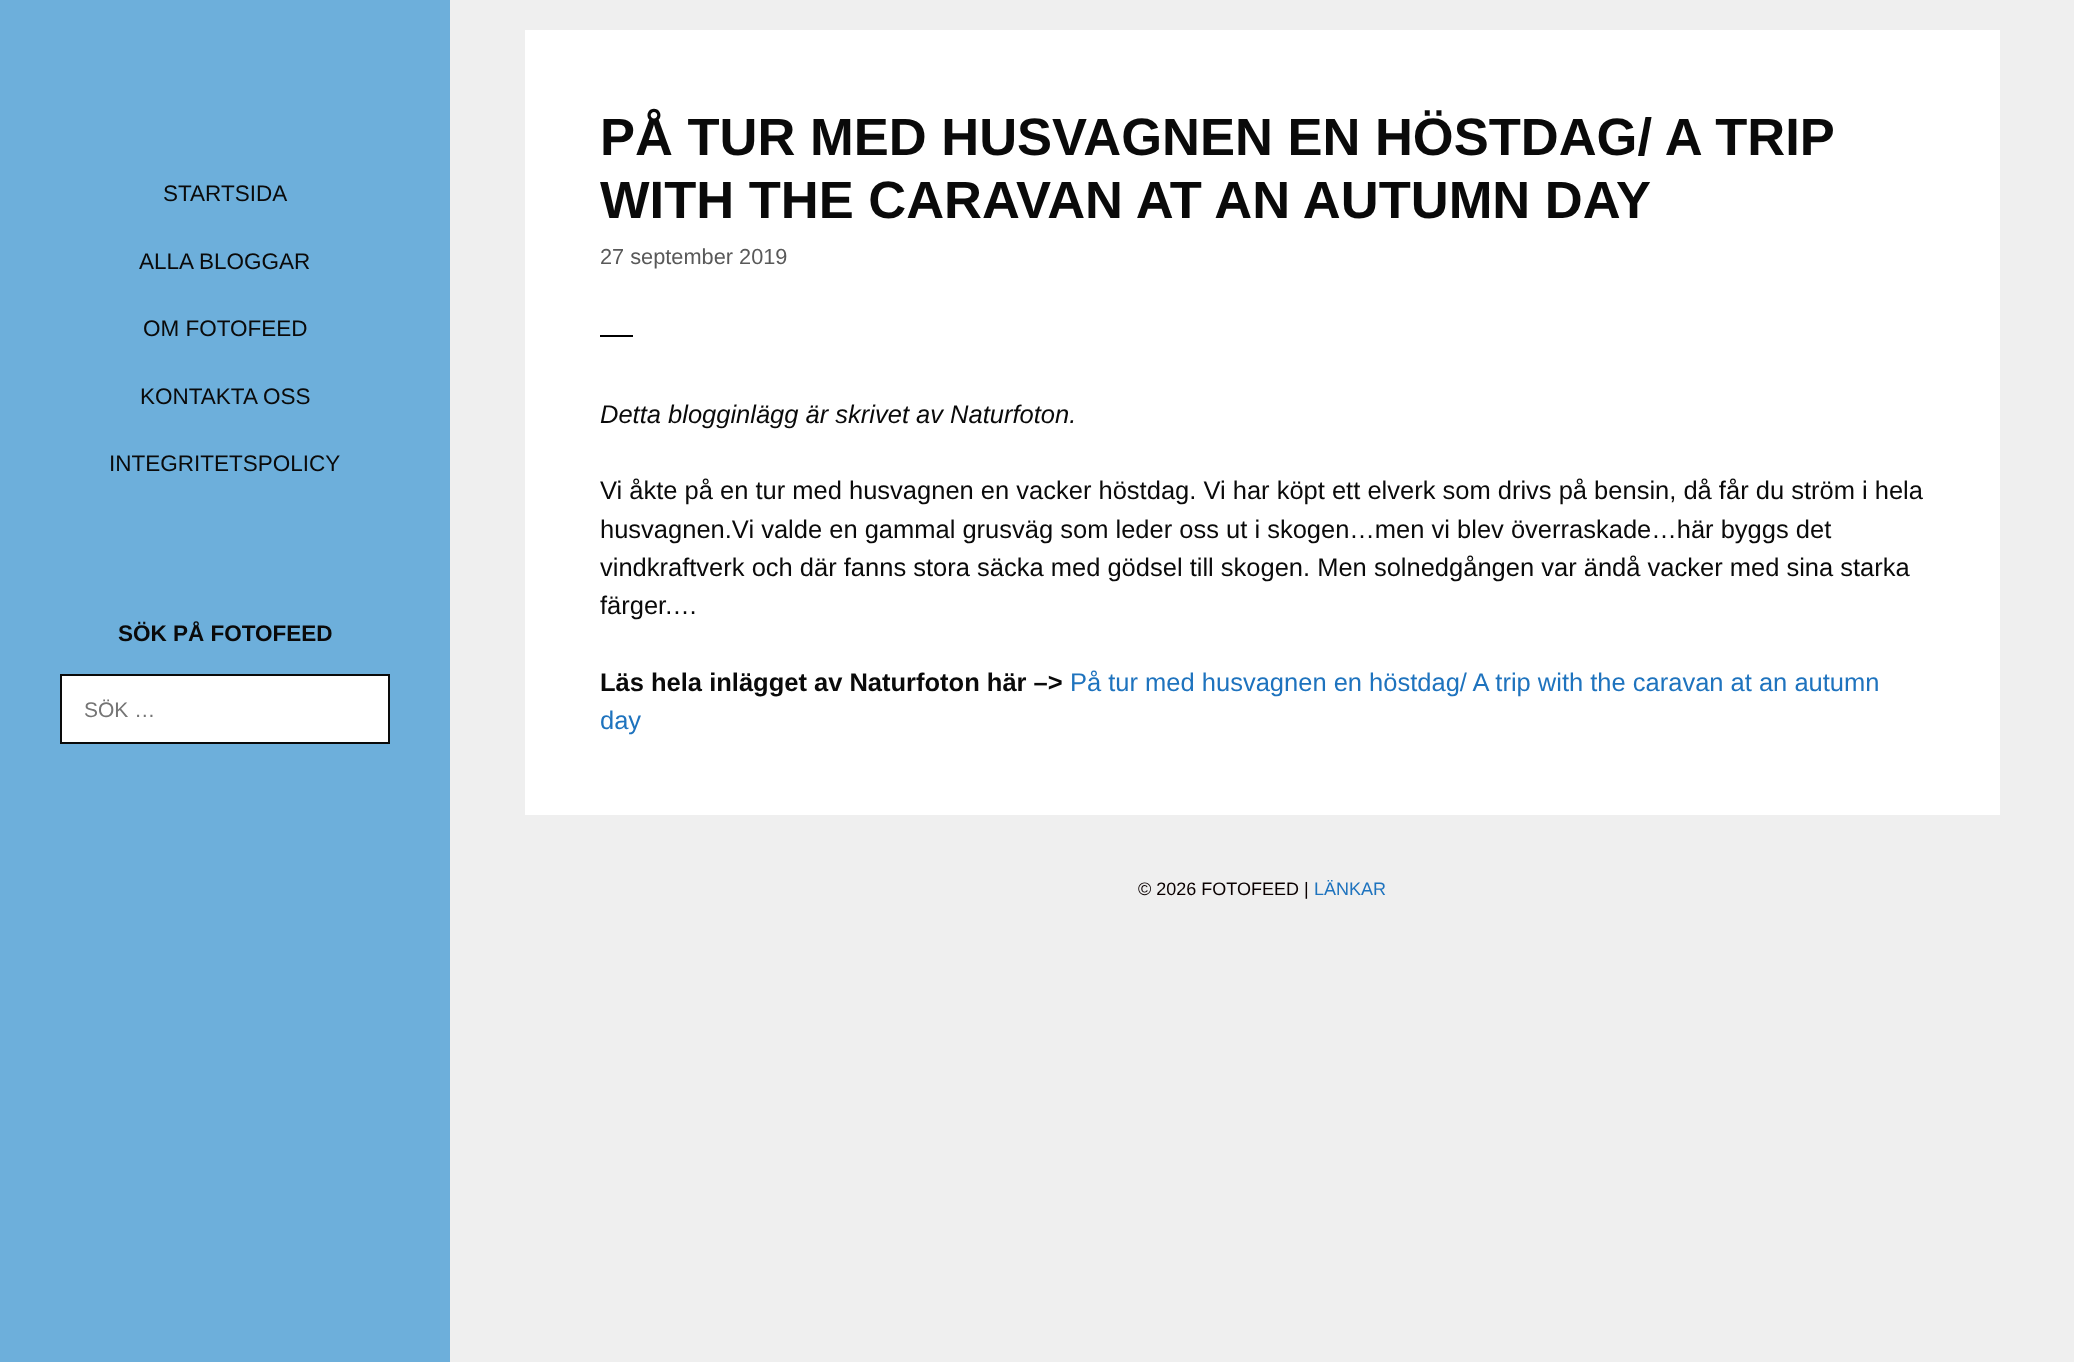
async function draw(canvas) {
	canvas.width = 2074;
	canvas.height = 1362;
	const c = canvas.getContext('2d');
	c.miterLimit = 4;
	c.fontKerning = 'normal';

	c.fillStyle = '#efefef';
	c.fillRect(0, 0, 2074, 1362);
	c.fillStyle = '#6dafdb';
	c.fillRect(0, 0, 450, 1362);
	c.font = '22.5px Arimo';
	c.fillStyle = '#0a0a0a';
	for (const [text, x, y] of [
		['STARTSIDA', 163, 201],
		['ALLA BLOGGAR', 139, 269],
		['OM FOTOFEED', 143, 336],
		['KONTAKTA OSS', 140, 404],
		['INTEGRITETSPOLICY', 109, 471],
	]) {
		c.fillText(text, x, y);
	}
	c.font = 'bold 22.5px Arimo';
	c.fillText('SÖK PÅ FOTOFEED', 118, 641);
	c.fillStyle = '#fff';
	c.beginPath();
	c.rect(61, 675, 328, 68);
	c.fill();
	c.strokeStyle = '#0a0a0a';
	c.lineWidth = 2;
	c.stroke();
	c.font = '21px Arimo';
	c.fillStyle = '#757575';
	c.fillText('SÖK …', 84, 717);
	c.fillStyle = '#fff';
	c.fillRect(525, 30, 1475, 785);
	c.font = 'bold 52.5px Arimo';
	c.fillStyle = '#0a0a0a';
	c.fillText('PÅ TUR MED HUSVAGNEN EN HÖSTDAG/ A TRIP', 600, 155);
	c.fillText('WITH THE CARAVAN AT AN AUTUMN DAY', 600, 218);
	c.font = '21.75px Arimo';
	c.fillStyle = '#595959';
	c.fillText('27 september 2019', 600, 264);
	c.fillStyle = '#000';
	c.fillRect(600, 335, 33, 2);
	c.font = 'italic 25.5px Arimo';
	c.fillStyle = '#0a0a0a';
	c.fillText('Detta blogginlägg är skrivet av Naturfoton.', 600, 423);
	c.font = '25.5px Arimo';
	for (const [text, x, y] of [
		['Vi åkte på en tur med husvagnen en vacker höstdag. Vi har köpt ett elverk som drivs på bensin, då får du ström i hela', 600, 499],
		['husvagnen.Vi valde en gammal grusväg som leder oss ut i skogen…men vi blev överraskade…här byggs det', 600, 538],
		['vindkraftverk och där fanns stora säcka med gödsel till skogen. Men solnedgången var ändå vacker med sina starka', 600, 576],
		['färger.…', 600, 614],
	]) {
		c.fillText(text, x, y);
	}
	c.font = 'bold 25.5px Arimo';
	c.fillText('Läs hela inlägget av Naturfoton här –>', 600, 691);
	c.font = '25.5px Arimo';
	c.fillStyle = '#1e73be';
	c.fillText('På tur med husvagnen en höstdag/ A trip with the caravan at an autumn', 1070, 691);
	c.fillText('day', 600, 729);
	c.font = '18px Arimo';
	c.fillStyle = '#0a0000';
	c.fillText('© 2026 FOTOFEED |', 1138, 895);
	c.fillStyle = '#1e73be';
	c.fillText('LÄNKAR', 1314, 895);
}

draw(document.querySelector('canvas'));
